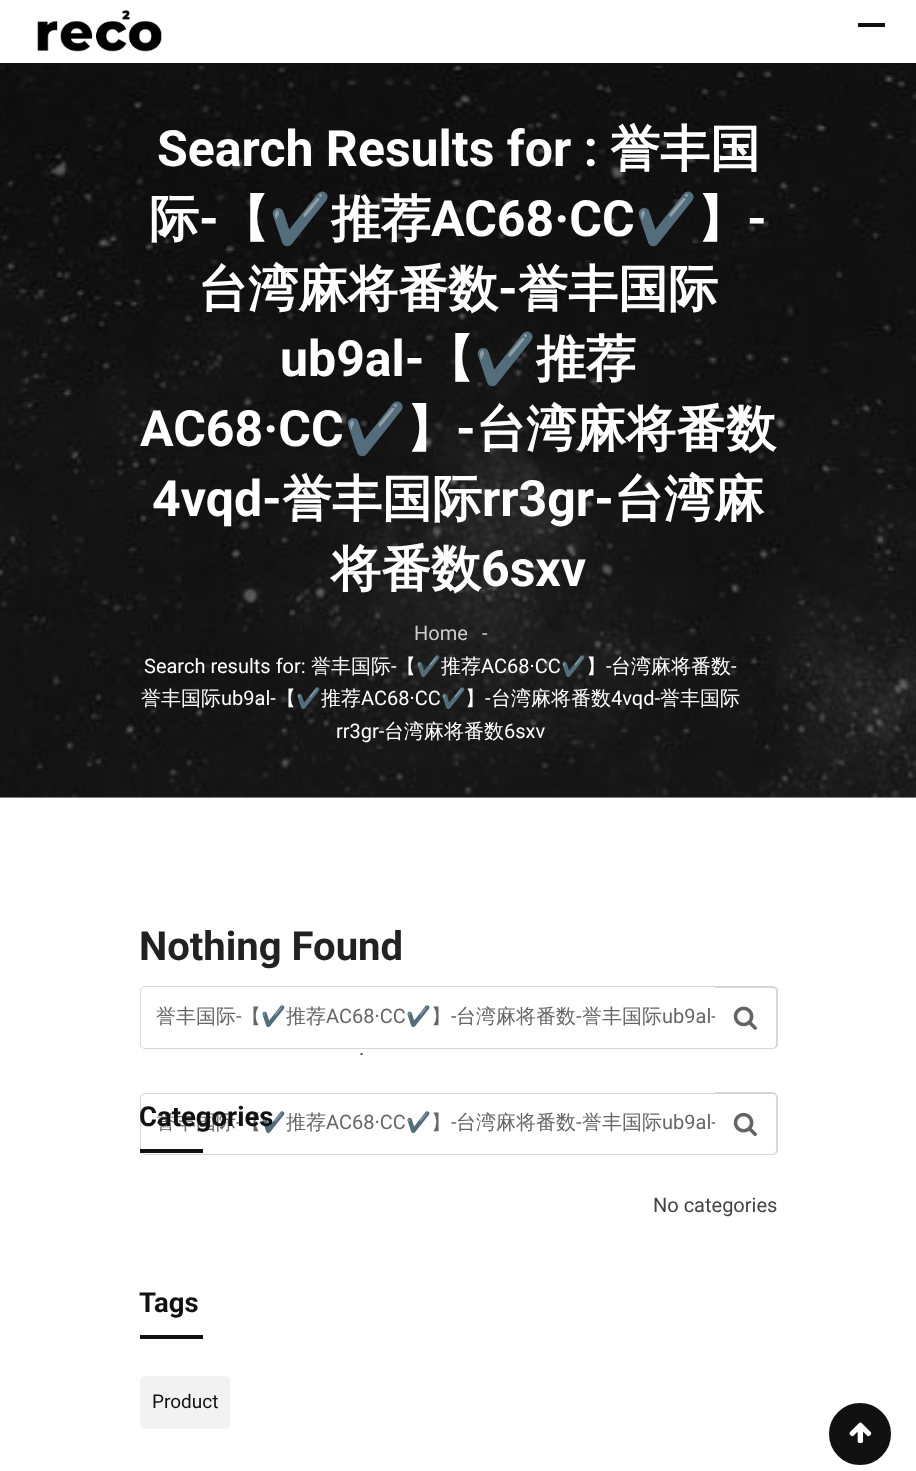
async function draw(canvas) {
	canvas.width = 916;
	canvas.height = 1471;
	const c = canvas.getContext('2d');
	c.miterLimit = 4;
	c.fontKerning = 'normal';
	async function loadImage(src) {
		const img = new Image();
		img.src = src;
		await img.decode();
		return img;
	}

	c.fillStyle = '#fff';
	c.fillRect(0, 0, 916, 1471);
	c.fillStyle = '#e6e6e6';
	c.fillRect(0, 797, 916, 1);
	c.fillStyle = '#111';
	c.fillRect(0, 63, 916, 3);
	c.drawImage(await loadImage('img1.png'), 37, 10, 125, 42);
	c.fillRect(858, 23, 27, 4);
	c.drawImage(await loadImage('img2.png'), 0, 66, 916, 732);
	c.font = 'bold 50px Roboto';
	c.fillStyle = '#fff';
	c.fillText('Search Results for :', 157, 166);
	c.font = 'bold 50px WenQuanYi Zen Hei';
	c.fillText('誉丰国', 610, 166);
	c.fillText('际', 149, 236);
	c.font = 'bold 50px Roboto';
	c.fillText('-', 199, 236);
	c.font = 'bold 50px WenQuanYi Zen Hei';
	c.fillText('【', 219, 236);
	c.font = 'bold 50px Noto Color Emoji';
	c.fillText('✔️', 269, 236);
	c.font = 'bold 50px WenQuanYi Zen Hei';
	c.fillText('推荐', 331, 236);
	c.font = 'bold 50px Roboto';
	c.fillText('AC68·CC', 431, 236);
	c.font = 'bold 50px Noto Color Emoji';
	c.fillText('✔️', 635, 236);
	c.font = 'bold 50px WenQuanYi Zen Hei';
	c.fillText('】', 697, 236);
	c.font = 'bold 50px Roboto';
	c.fillText('-', 747, 236);
	c.font = 'bold 50px WenQuanYi Zen Hei';
	c.fillText('台湾麻将番数', 198, 306);
	c.font = 'bold 50px Roboto';
	c.fillText('-', 498, 306);
	c.font = 'bold 50px WenQuanYi Zen Hei';
	c.fillText('誉丰国际', 518, 306);
	c.font = 'bold 50px Roboto';
	c.fillText('ub9al-', 280, 376);
	c.font = 'bold 50px WenQuanYi Zen Hei';
	c.fillText('【', 424, 376);
	c.font = 'bold 50px Noto Color Emoji';
	c.fillText('✔️', 474, 376);
	c.font = 'bold 50px WenQuanYi Zen Hei';
	c.fillText('推荐', 536, 376);
	c.font = 'bold 50px Roboto';
	c.fillText('AC68·CC', 140, 446);
	c.font = 'bold 50px Noto Color Emoji';
	c.fillText('✔️', 344, 446);
	c.font = 'bold 50px WenQuanYi Zen Hei';
	c.fillText('】', 406, 446);
	c.font = 'bold 50px Roboto';
	c.fillText('-', 456, 446);
	c.font = 'bold 50px WenQuanYi Zen Hei';
	c.fillText('台湾麻将番数', 476, 446);
	c.font = 'bold 50px Roboto';
	c.fillText('4vqd-', 152, 516);
	c.font = 'bold 50px WenQuanYi Zen Hei';
	c.fillText('誉丰国际', 282, 516);
	c.font = 'bold 50px Roboto';
	c.fillText('rr3gr-', 482, 516);
	c.font = 'bold 50px WenQuanYi Zen Hei';
	c.fillText('台湾麻', 614, 516);
	c.fillText('将番数', 331, 586);
	c.font = 'bold 50px Roboto';
	c.fillText('6sxv', 481, 586);
	c.font = '20px Roboto';
	c.fillStyle = '#ccc';
	c.fillText('Home', 414, 640);
	c.fillText('-', 482, 640);
	c.fillStyle = '#fff';
	c.fillText('Search results for:', 144, 673);
	c.font = '500 20px WenQuanYi Zen Hei';
	c.fillText('誉丰国际', 311, 673);
	c.font = '20px Roboto';
	c.fillText('-', 391, 673);
	c.font = '500 20px WenQuanYi Zen Hei';
	c.fillText('【', 396, 673);
	c.font = '20px Noto Color Emoji';
	c.fillText('✔️', 416, 673);
	c.font = '500 20px WenQuanYi Zen Hei';
	c.fillText('推荐', 441, 673);
	c.font = '20px Roboto';
	c.fillText('AC68·CC', 481, 673);
	c.font = '20px Noto Color Emoji';
	c.fillText('✔️', 561, 673);
	c.font = '500 20px WenQuanYi Zen Hei';
	c.fillText('】', 586, 673);
	c.font = '20px Roboto';
	c.fillText('-', 606, 673);
	c.font = '500 20px WenQuanYi Zen Hei';
	c.fillText('台湾麻将番数', 611, 673);
	c.font = '20px Roboto';
	c.fillText('-', 731, 673);
	c.font = '500 20px WenQuanYi Zen Hei';
	c.fillText('誉丰国际', 141, 705);
	c.font = '20px Roboto';
	c.fillText('ub9al-', 221, 705);
	c.font = '500 20px WenQuanYi Zen Hei';
	c.fillText('【', 276, 705);
	c.font = '20px Noto Color Emoji';
	c.fillText('✔️', 296, 705);
	c.font = '500 20px WenQuanYi Zen Hei';
	c.fillText('推荐', 321, 705);
	c.font = '20px Roboto';
	c.fillText('AC68·CC', 361, 705);
	c.font = '20px Noto Color Emoji';
	c.fillText('✔️', 441, 705);
	c.font = '500 20px WenQuanYi Zen Hei';
	c.fillText('】', 465, 705);
	c.font = '20px Roboto';
	c.fillText('-', 485, 705);
	c.font = '500 20px WenQuanYi Zen Hei';
	c.fillText('台湾麻将番数', 491, 705);
	c.font = '20px Roboto';
	c.fillText('4vqd-', 611, 705);
	c.font = '500 20px WenQuanYi Zen Hei';
	c.fillText('誉丰国际', 660, 705);
	c.font = '20px Roboto';
	c.fillText('rr3gr-', 336, 738);
	c.font = '500 20px WenQuanYi Zen Hei';
	c.fillText('台湾麻将番数', 384, 738);
	c.font = '20px Roboto';
	c.fillText('6sxv', 504, 738);
	c.font = 'bold 40px Roboto';
	c.fillStyle = '#222';
	c.fillText('Nothing Found', 139, 960);
	c.font = '20px Roboto';
	c.fillStyle = '#444';
	c.fillText('.', 359, 1055);
	c.beginPath();
	c.roundRect(140.5, 1093.5, 637, 61, 4.5);
	c.strokeStyle = '#d7d7d7';
	c.stroke();
	c.font = '500 20px WenQuanYi Zen Hei';
	c.fillStyle = '#666';
	c.fillText('誉丰国际', 156, 1129);
	c.font = '20px Roboto';
	c.fillText('-', 236, 1129);
	c.font = '500 20px WenQuanYi Zen Hei';
	c.fillText('【', 241, 1129);
	c.font = '20px Noto Color Emoji';
	c.fillText('✔️', 261, 1129);
	c.font = '500 20px WenQuanYi Zen Hei';
	c.fillText('推荐', 286, 1129);
	c.font = '20px Roboto';
	c.fillText('AC68·CC', 326, 1129);
	c.font = '20px Noto Color Emoji';
	c.fillText('✔️', 406, 1129);
	c.font = '500 20px WenQuanYi Zen Hei';
	c.fillText('】', 431, 1129);
	c.font = '20px Roboto';
	c.fillText('-', 451, 1129);
	c.font = '500 20px WenQuanYi Zen Hei';
	c.fillText('台湾麻将番数', 456, 1129);
	c.font = '20px Roboto';
	c.fillText('-', 576, 1129);
	c.font = '500 20px WenQuanYi Zen Hei';
	c.fillText('誉丰国际', 582, 1129);
	c.font = '20px Roboto';
	c.fillText('ub9al-', 662, 1129);
	c.fillStyle = '#fff';
	c.beginPath();
	c.roundRect(715, 1093, 63, 62, [0, 5, 5, 0]);
	c.fill();
	c.fillStyle = '#d7d7d7';
	c.beginPath();
	c.moveTo(715, 1092);
	c.lineTo(772, 1092);
	c.bezierCurveTo(775, 1092, 778, 1095, 778, 1098);
	c.lineTo(778, 1150);
	c.bezierCurveTo(778, 1153, 775, 1155, 772, 1155);
	c.lineTo(715, 1155);
	c.closePath();
	c.moveTo(715, 1094);
	c.lineTo(772, 1094);
	c.bezierCurveTo(775, 1094, 776, 1095, 776, 1098);
	c.lineTo(776, 1150);
	c.bezierCurveTo(776, 1152, 775, 1154, 772, 1154);
	c.lineTo(715, 1154);
	c.closePath();
	c.fill('evenodd');
	c.drawImage(await loadImage('img3.png'), 733, 1112, 24, 24);
	c.beginPath();
	c.roundRect(140.5, 986.5, 637, 62, 4.5);
	c.stroke();
	c.font = '500 20px WenQuanYi Zen Hei';
	c.fillStyle = '#666';
	c.fillText('誉丰国际', 156, 1023);
	c.font = '20px Roboto';
	c.fillText('-', 236, 1023);
	c.font = '500 20px WenQuanYi Zen Hei';
	c.fillText('【', 241, 1023);
	c.font = '20px Noto Color Emoji';
	c.fillText('✔️', 261, 1023);
	c.font = '500 20px WenQuanYi Zen Hei';
	c.fillText('推荐', 286, 1023);
	c.font = '20px Roboto';
	c.fillText('AC68·CC', 326, 1023);
	c.font = '20px Noto Color Emoji';
	c.fillText('✔️', 406, 1023);
	c.font = '500 20px WenQuanYi Zen Hei';
	c.fillText('】', 431, 1023);
	c.font = '20px Roboto';
	c.fillText('-', 451, 1023);
	c.font = '500 20px WenQuanYi Zen Hei';
	c.fillText('台湾麻将番数', 456, 1023);
	c.font = '20px Roboto';
	c.fillText('-', 576, 1023);
	c.font = '500 20px WenQuanYi Zen Hei';
	c.fillText('誉丰国际', 582, 1023);
	c.font = '20px Roboto';
	c.fillText('ub9al-', 662, 1023);
	c.fillStyle = '#fff';
	c.beginPath();
	c.roundRect(715, 986, 63, 63, [0, 5, 5, 0]);
	c.fill();
	c.fillStyle = '#d7d7d7';
	c.beginPath();
	c.moveTo(715, 986);
	c.lineTo(772, 986);
	c.bezierCurveTo(775, 986, 778, 988, 778, 991);
	c.lineTo(778, 1044);
	c.bezierCurveTo(778, 1047, 775, 1049, 772, 1049);
	c.lineTo(715, 1049);
	c.closePath();
	c.moveTo(715, 988);
	c.lineTo(772, 988);
	c.bezierCurveTo(775, 988, 776, 989, 776, 991);
	c.lineTo(776, 1044);
	c.bezierCurveTo(776, 1046, 775, 1048, 772, 1048);
	c.lineTo(715, 1048);
	c.closePath();
	c.fill('evenodd');
	c.drawImage(await loadImage('img4.png'), 733, 1006, 24, 24);
	c.font = 'bold 27.5px Roboto';
	c.fillStyle = '#111';
	c.fillText('Categories', 139, 1126);
	c.fillRect(140, 1149, 63, 4);
	c.font = '20px Roboto';
	c.fillStyle = '#444';
	c.fillText('No categories', 653, 1212);
	c.font = 'bold 27.5px Roboto';
	c.fillStyle = '#111';
	c.fillText('Tags', 139, 1312);
	c.fillRect(140, 1335, 63, 4);
	c.fillStyle = '#f2f2f2';
	c.beginPath();
	c.roundRect(140, 1376, 90, 53, 5);
	c.fill();
	c.font = '19px Roboto';
	c.fillStyle = '#111';
	c.fillText('Product', 152, 1408);
	c.beginPath();
	c.arc(860, 1434, 29.5, 0, 2 * Math.PI);
	c.fill();
	c.strokeStyle = '#111';
	c.lineWidth = 3;
	c.stroke();
	c.drawImage(await loadImage('img5.png'), 849, 1422, 23, 22);
}

draw(document.querySelector('canvas'));
